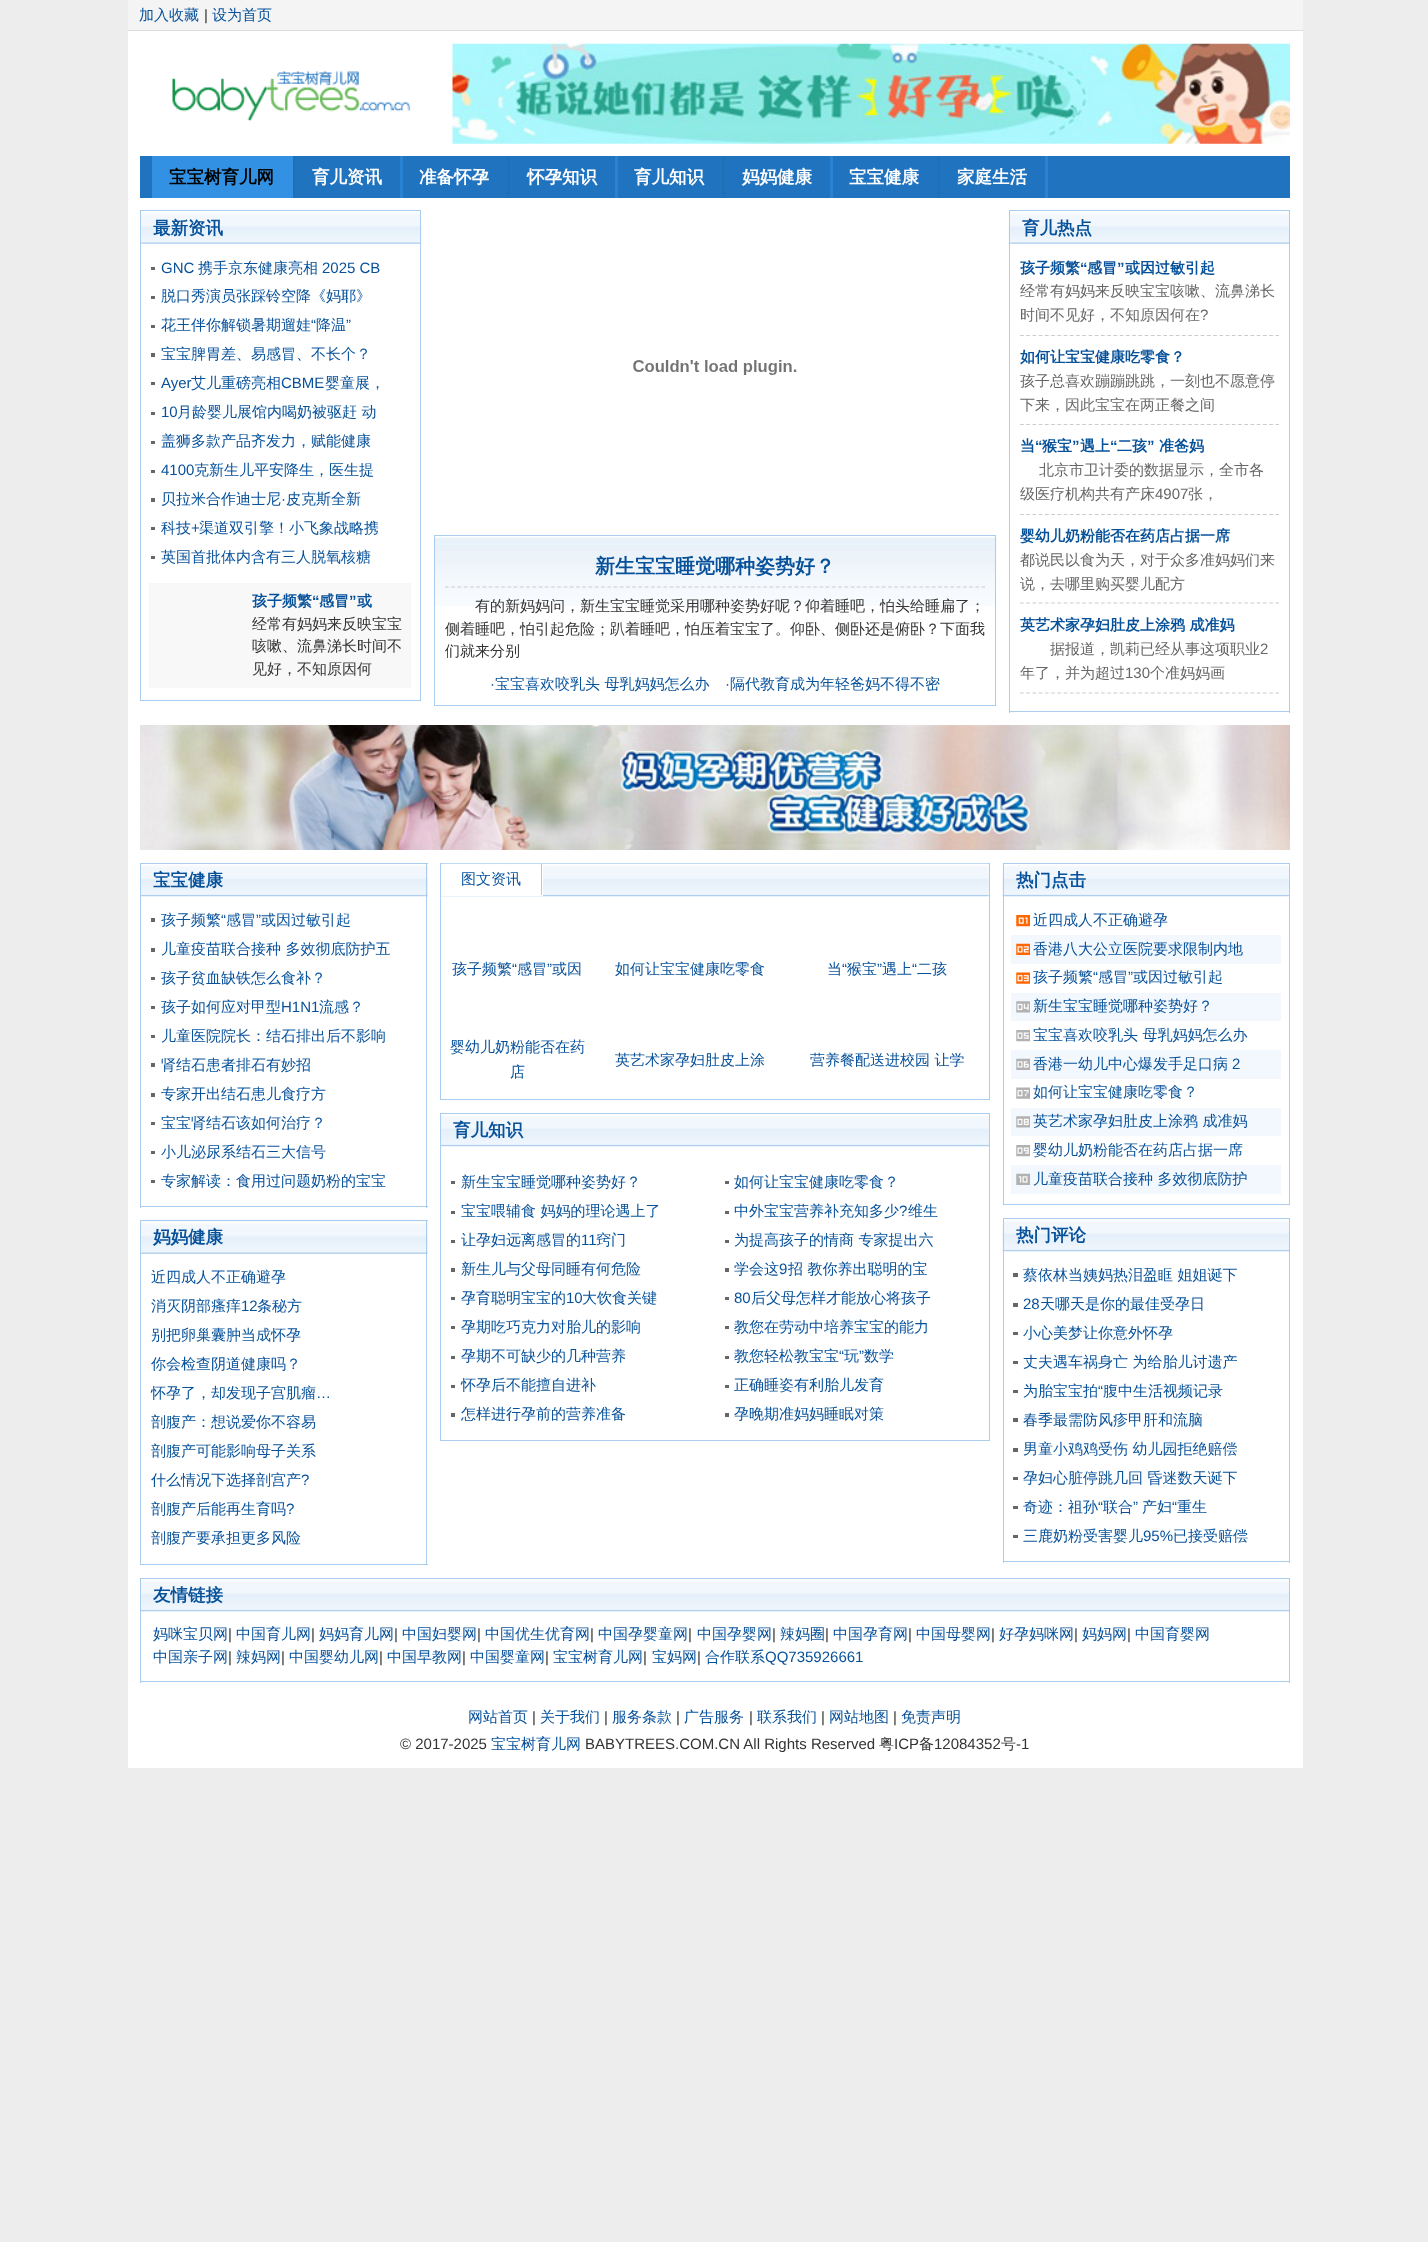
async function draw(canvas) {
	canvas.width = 1428;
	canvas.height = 2242;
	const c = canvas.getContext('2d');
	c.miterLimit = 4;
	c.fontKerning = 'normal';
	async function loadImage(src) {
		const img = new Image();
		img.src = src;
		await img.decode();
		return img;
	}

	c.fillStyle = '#ededed';
	c.fillRect(0, 0, 1428, 2242);
	for (const [x, y, w, h, color] of [
		[128, 31, 1175, 1737, '#fff'],
		[128, 30, 1175, 1, '#dcdcdc'],
		[128, 0, 1175, 30, '#f4f4f4'],
	]) {
		c.fillStyle = color;
		c.fillRect(x, y, w, h);
	}
	c.font = '500 15px WenQuanYi Zen Hei';
	c.fillStyle = '#07519a';
	c.fillText('加入收藏', 139, 20);
	c.font = '15px Liberation Sans';
	c.fillStyle = '#333';
	c.fillText('|', 204, 20);
	c.font = '500 15px WenQuanYi Zen Hei';
	c.fillStyle = '#07519a';
	c.fillText('设为首页', 212, 20);
	c.drawImage(await loadImage('img1.png'), 172, 71, 239, 51);
	c.drawImage(await loadImage('img2.png'), 452, 43, 838, 101);
	for (const [x, y, w, h, color] of [
		[140, 156, 1150, 42, '#2073bf'],
		[293, 156, 2, 42, '#1e70b9'],
		[152, 156, 141, 42, '#3291e3'],
	]) {
		c.fillStyle = color;
		c.fillRect(x, y, w, h);
	}
	c.font = 'bold 17.5px WenQuanYi Zen Hei';
	c.fillStyle = '#000';
	c.fillText('宝宝树育儿网', 169, 183);
	c.fillStyle = '#2983d2';
	c.fillRect(400, 156, 3, 42);
	c.fillStyle = '#fff';
	c.fillText('育儿资讯', 312, 183);
	c.fillStyle = '#1e70b9';
	c.fillRect(507, 156, 3, 42);
	c.fillStyle = '#fff';
	c.fillText('准备怀孕', 419, 183);
	c.fillStyle = '#2983d2';
	c.fillRect(615, 156, 3, 42);
	c.fillStyle = '#fff';
	c.fillText('怀孕知识', 527, 183);
	c.fillStyle = '#1e70b9';
	c.fillRect(722, 156, 3, 42);
	c.fillStyle = '#fff';
	c.fillText('育儿知识', 634, 183);
	c.fillStyle = '#2983d2';
	c.fillRect(830, 156, 3, 42);
	c.fillStyle = '#fff';
	c.fillText('妈妈健康', 742, 183);
	c.fillStyle = '#1e70b9';
	c.fillRect(937, 156, 3, 42);
	c.fillStyle = '#fff';
	c.fillText('宝宝健康', 849, 183);
	c.fillStyle = '#2983d2';
	c.fillRect(1045, 156, 3, 42);
	c.fillStyle = '#fff';
	c.fillText('家庭生活', 957, 183);
	c.drawImage(await loadImage('img3.png'), 141, 211, 281, 33);
	for (const [x, y, w, h, color] of [
		[140, 210, 281, 1, '#ace'],
		[420, 210, 1, 491, '#ace'],
		[140, 210, 1, 34, '#ace'],
	]) {
		c.fillStyle = color;
		c.fillRect(x, y, w, h);
	}
	c.fillStyle = '#07519a';
	c.fillText('最新资讯', 153, 234);
	for (const [x, y, w, h, color] of [
		[140, 700, 281, 1, '#ace'],
		[140, 244, 1, 457, '#ace'],
		[151, 267, 4, 3, '#666'],
	]) {
		c.fillStyle = color;
		c.fillRect(x, y, w, h);
	}
	c.font = '15px Liberation Sans';
	c.fillStyle = '#07519a';
	c.fillText('GNC', 161, 273);
	c.font = '500 15px WenQuanYi Zen Hei';
	c.fillText('携手京东健康亮相', 198, 273);
	c.font = '15px Liberation Sans';
	c.fillText('2025 CB', 322, 273);
	c.fillStyle = '#666';
	c.fillRect(151, 296, 4, 3);
	c.font = '500 15px WenQuanYi Zen Hei';
	c.fillStyle = '#07519a';
	c.fillText('脱口秀演员张踩铃空降《妈耶》', 161, 301);
	c.fillStyle = '#666';
	c.fillRect(151, 325, 4, 3);
	c.fillStyle = '#07519a';
	c.fillText('花王伴你解锁暑期遛娃', 161, 330);
	c.font = '15px Liberation Sans';
	c.fillText('“', 311, 330);
	c.font = '500 15px WenQuanYi Zen Hei';
	c.fillText('降温', 316, 330);
	c.font = '15px Liberation Sans';
	c.fillText('”', 346, 330);
	c.fillStyle = '#666';
	c.fillRect(151, 353, 4, 4);
	c.font = '500 15px WenQuanYi Zen Hei';
	c.fillStyle = '#07519a';
	c.fillText('宝宝脾胃差、易感冒、不长个？', 161, 359);
	c.fillStyle = '#666';
	c.fillRect(151, 382, 4, 3);
	c.font = '15px Liberation Sans';
	c.fillStyle = '#07519a';
	c.fillText('Ayer', 161, 388);
	c.font = '500 15px WenQuanYi Zen Hei';
	c.fillText('艾儿重磅亮相', 191, 388);
	c.font = '15px Liberation Sans';
	c.fillText('CBME', 281, 388);
	c.font = '500 15px WenQuanYi Zen Hei';
	c.fillText('婴童展，', 325, 388);
	c.fillStyle = '#666';
	c.fillRect(151, 412, 4, 3);
	c.font = '15px Liberation Sans';
	c.fillStyle = '#07519a';
	c.fillText('10', 161, 417);
	c.font = '500 15px WenQuanYi Zen Hei';
	c.fillText('月龄婴儿展馆内喝奶被驱赶 动', 177, 417);
	c.fillStyle = '#666';
	c.fillRect(151, 441, 4, 3);
	c.fillStyle = '#07519a';
	c.fillText('盖狮多款产品齐发力，赋能健康', 161, 446);
	c.fillStyle = '#666';
	c.fillRect(151, 470, 4, 3);
	c.font = '15px Liberation Sans';
	c.fillStyle = '#07519a';
	c.fillText('4100', 161, 475);
	c.font = '500 15px WenQuanYi Zen Hei';
	c.fillText('克新生儿平安降生，医生提', 194, 475);
	c.fillStyle = '#666';
	c.fillRect(151, 498, 4, 4);
	c.fillStyle = '#07519a';
	c.fillText('贝拉米合作迪士尼', 161, 504);
	c.font = '15px Liberation Sans';
	c.fillText('·', 281, 504);
	c.font = '500 15px WenQuanYi Zen Hei';
	c.fillText('皮克斯全新', 286, 504);
	c.fillStyle = '#666';
	c.fillRect(151, 527, 4, 3);
	c.fillStyle = '#07519a';
	c.fillText('科技', 161, 533);
	c.font = '15px Liberation Sans';
	c.fillText('+', 191, 533);
	c.font = '500 15px WenQuanYi Zen Hei';
	c.fillText('渠道双引擎！小飞象战略携', 199, 533);
	c.fillStyle = '#666';
	c.fillRect(151, 556, 4, 3);
	c.fillStyle = '#07519a';
	c.fillText('英国首批体内含有三人脱氧核糖', 161, 562);
	c.fillStyle = '#f8f8f8';
	c.fillRect(149, 583, 262, 105);
	c.font = 'bold 15px WenQuanYi Zen Hei';
	c.fillStyle = '#07519a';
	c.fillText('孩子频繁', 252, 606);
	c.font = 'bold 15px Liberation Sans';
	c.fillText('“', 312, 606);
	c.font = 'bold 15px WenQuanYi Zen Hei';
	c.fillText('感冒', 319, 606);
	c.font = 'bold 15px Liberation Sans';
	c.fillText('”', 349, 606);
	c.font = 'bold 15px WenQuanYi Zen Hei';
	c.fillText('或', 357, 606);
	c.font = '500 15px WenQuanYi Zen Hei';
	c.fillStyle = '#333';
	for (const [text, x, y] of [
		['经常有妈妈来反映宝宝', 252, 629],
		['咳嗽、流鼻涕长时间不', 252, 651],
		['见好，不知原因何', 252, 674],
	]) {
		c.fillText(text, x, y);
	}
	c.drawImage(await loadImage('img4.png'), 633, 360, 164, 15);
	c.drawImage(await loadImage('img5.png'), 433, 536, 564, 70);
	c.strokeStyle = '#ace';
	c.strokeRect(434.5, 535.5, 561, 170);
	c.beginPath();
	c.moveTo(445, 587);
	c.lineTo(985, 587);
	c.strokeStyle = '#ccc';
	c.lineWidth = 1.2;
	c.setLineDash([3.75, 2.49]);
	c.stroke();
	c.font = 'bold 20px WenQuanYi Zen Hei';
	c.fillStyle = '#07519a';
	c.fillText('新生宝宝睡觉哪种姿势好？', 595, 573);
	c.font = '500 15px WenQuanYi Zen Hei';
	c.fillStyle = '#333';
	for (const [text, x, y] of [
		['有的新妈妈问，新生宝宝睡觉采用哪种姿势好呢？仰着睡吧，怕头给睡扁了；', 475, 611],
		['侧着睡吧，怕引起危险；趴着睡吧，怕压着宝宝了。仰卧、侧卧还是俯卧？下面我', 445, 634],
		['们就来分别', 445, 656],
	]) {
		c.fillText(text, x, y);
	}
	c.font = '15px Liberation Sans';
	c.fillStyle = '#07519a';
	c.fillText('·', 490, 689);
	c.font = '500 15px WenQuanYi Zen Hei';
	c.fillText('宝宝喜欢咬乳头 母乳妈妈怎么办', 495, 689);
	c.font = '15px Liberation Sans';
	c.fillText('·', 725, 689);
	c.font = '500 15px WenQuanYi Zen Hei';
	c.fillText('隔代教育成为年轻爸妈不得不密', 730, 689);
	c.drawImage(await loadImage('img6.png'), 1008, 211, 281, 33);
	for (const [x, y, w, h, color] of [
		[1009, 210, 281, 1, '#ace'],
		[1289, 210, 1, 503, '#ace'],
		[1009, 210, 1, 34, '#ace'],
	]) {
		c.fillStyle = color;
		c.fillRect(x, y, w, h);
	}
	c.font = 'bold 17.5px WenQuanYi Zen Hei';
	c.fillStyle = '#07519a';
	c.fillText('育儿热点', 1022, 234);
	c.fillStyle = '#ace';
	c.fillRect(1009, 711, 281, 1);
	c.fillRect(1009, 244, 1, 469);
	c.beginPath();
	c.moveTo(1020, 335.5);
	c.lineTo(1279, 335.5);
	c.setLineDash([3.75, 2.48]);
	c.stroke();
	c.font = 'bold 15px WenQuanYi Zen Hei';
	c.fillStyle = '#07519a';
	c.fillText('孩子频繁', 1020, 273);
	c.font = 'bold 15px Liberation Sans';
	c.fillText('“', 1080, 273);
	c.font = 'bold 15px WenQuanYi Zen Hei';
	c.fillText('感冒', 1087, 273);
	c.font = 'bold 15px Liberation Sans';
	c.fillText('”', 1117, 273);
	c.font = 'bold 15px WenQuanYi Zen Hei';
	c.fillText('或因过敏引起', 1125, 273);
	c.font = '500 15px WenQuanYi Zen Hei';
	c.fillStyle = '#666';
	c.fillText('经常有妈妈来反映宝宝咳嗽、流鼻涕长', 1020, 296);
	c.fillText('时间不见好，不知原因何在', 1020, 320);
	c.font = '15px Liberation Sans';
	c.fillText('?', 1200, 320);
	c.beginPath();
	c.moveTo(1020, 424.5);
	c.lineTo(1279, 424.5);
	c.stroke();
	c.font = 'bold 15px WenQuanYi Zen Hei';
	c.fillStyle = '#07519a';
	c.fillText('如何让宝宝健康吃零食？', 1020, 362);
	c.font = '500 15px WenQuanYi Zen Hei';
	c.fillStyle = '#666';
	c.fillText('孩子总喜欢蹦蹦跳跳，一刻也不愿意停', 1020, 386);
	c.fillText('下来，因此宝宝在两正餐之间', 1020, 410);
	c.beginPath();
	c.moveTo(1020, 514.5);
	c.lineTo(1279, 514.5);
	c.stroke();
	c.font = 'bold 15px WenQuanYi Zen Hei';
	c.fillStyle = '#07519a';
	c.fillText('当', 1020, 451);
	c.font = 'bold 15px Liberation Sans';
	c.fillText('“', 1035, 451);
	c.font = 'bold 15px WenQuanYi Zen Hei';
	c.fillText('猴宝', 1042, 451);
	c.font = 'bold 15px Liberation Sans';
	c.fillText('”', 1072, 451);
	c.font = 'bold 15px WenQuanYi Zen Hei';
	c.fillText('遇上', 1080, 451);
	c.font = 'bold 15px Liberation Sans';
	c.fillText('“', 1110, 451);
	c.font = 'bold 15px WenQuanYi Zen Hei';
	c.fillText('二孩', 1117, 451);
	c.font = 'bold 15px Liberation Sans';
	c.fillText('”', 1147, 451);
	c.font = 'bold 15px WenQuanYi Zen Hei';
	c.fillText('准爸妈', 1159, 451);
	c.font = '500 15px WenQuanYi Zen Hei';
	c.fillStyle = '#666';
	c.fillText('北京市卫计委的数据显示，全市各', 1039, 475);
	c.fillText('级医疗机构共有产床', 1020, 499);
	c.font = '15px Liberation Sans';
	c.fillText('4907', 1155, 499);
	c.font = '500 15px WenQuanYi Zen Hei';
	c.fillText('张，', 1188, 499);
	c.beginPath();
	c.moveTo(1020, 603);
	c.lineTo(1279, 603);
	c.stroke();
	c.font = 'bold 15px WenQuanYi Zen Hei';
	c.fillStyle = '#07519a';
	c.fillText('婴幼儿奶粉能否在药店占据一席', 1020, 541);
	c.font = '500 15px WenQuanYi Zen Hei';
	c.fillStyle = '#666';
	c.fillText('都说民以食为天，对于众多准妈妈们来', 1020, 565);
	c.fillText('说，去哪里购买婴儿配方', 1020, 589);
	c.beginPath();
	c.moveTo(1020, 693);
	c.lineTo(1279, 693);
	c.stroke();
	c.font = 'bold 15px WenQuanYi Zen Hei';
	c.fillStyle = '#07519a';
	c.fillText('英艺术家孕妇肚皮上涂鸦 成准妈', 1020, 630);
	c.font = '500 15px WenQuanYi Zen Hei';
	c.fillStyle = '#666';
	c.fillText('据报道，凯莉已经从事这项职业', 1050, 654);
	c.font = '15px Liberation Sans';
	c.fillText('2', 1260, 654);
	c.font = '500 15px WenQuanYi Zen Hei';
	c.fillText('年了，并为超过', 1020, 678);
	c.font = '15px Liberation Sans';
	c.fillText('130', 1125, 678);
	c.font = '500 15px WenQuanYi Zen Hei';
	c.fillText('个准妈妈画', 1150, 678);
	c.drawImage(await loadImage('img7.png'), 140, 725, 1150, 125);
	c.fillStyle = '#e9f2fb';
	c.fillRect(427, 864, 1, 32);
	c.drawImage(await loadImage('img8.png'), 141, 864, 287, 33);
	for (const [x, y, w, h, color] of [
		[140, 863, 288, 1, '#ace'],
		[426, 863, 1, 345, '#ace'],
		[140, 863, 1, 33, '#ace'],
	]) {
		c.fillStyle = color;
		c.fillRect(x, y, w, h);
	}
	c.font = 'bold 17.5px WenQuanYi Zen Hei';
	c.fillStyle = '#07519a';
	c.fillText('宝宝健康', 153, 886);
	for (const [x, y, w, h, color] of [
		[140, 1206, 288, 1, '#ace'],
		[140, 896, 1, 312, '#ace'],
		[151, 918, 4, 4, '#666'],
	]) {
		c.fillStyle = color;
		c.fillRect(x, y, w, h);
	}
	c.font = '500 15px WenQuanYi Zen Hei';
	c.fillStyle = '#07519a';
	c.fillText('孩子频繁', 161, 925);
	c.font = '15px Liberation Sans';
	c.fillText('“', 221, 925);
	c.font = '500 15px WenQuanYi Zen Hei';
	c.fillText('感冒', 226, 925);
	c.font = '15px Liberation Sans';
	c.fillText('”', 256, 925);
	c.font = '500 15px WenQuanYi Zen Hei';
	c.fillText('或因过敏引起', 261, 925);
	c.fillStyle = '#666';
	c.fillRect(151, 948, 4, 4);
	c.fillStyle = '#07519a';
	c.fillText('儿童疫苗联合接种 多效彻底防护五', 161, 954);
	c.fillStyle = '#666';
	c.fillRect(151, 977, 4, 3);
	c.fillStyle = '#07519a';
	c.fillText('孩子贫血缺铁怎么食补？', 161, 983);
	c.fillStyle = '#666';
	c.fillRect(151, 1006, 4, 3);
	c.fillStyle = '#07519a';
	c.fillText('孩子如何应对甲型', 161, 1012);
	c.font = '15px Liberation Sans';
	c.fillText('H1N1', 281, 1012);
	c.font = '500 15px WenQuanYi Zen Hei';
	c.fillText('流感？', 319, 1012);
	c.fillStyle = '#666';
	c.fillRect(151, 1035, 4, 3);
	c.fillStyle = '#07519a';
	c.fillText('儿童医院院长：结石排出后不影响', 161, 1041);
	c.fillStyle = '#666';
	c.fillRect(151, 1063, 4, 4);
	c.fillStyle = '#07519a';
	c.fillText('肾结石患者排石有妙招', 161, 1070);
	c.fillStyle = '#666';
	c.fillRect(151, 1093, 4, 4);
	c.fillStyle = '#07519a';
	c.fillText('专家开出结石患儿食疗方', 161, 1099);
	c.fillStyle = '#666';
	c.fillRect(151, 1122, 4, 3);
	c.fillStyle = '#07519a';
	c.fillText('宝宝肾结石该如何治疗？', 161, 1128);
	c.fillStyle = '#666';
	c.fillRect(151, 1151, 4, 3);
	c.fillStyle = '#07519a';
	c.fillText('小儿泌尿系结石三大信号', 161, 1157);
	c.fillStyle = '#666';
	c.fillRect(151, 1180, 4, 3);
	c.fillStyle = '#07519a';
	c.fillText('专家解读：食用过问题奶粉的宝宝', 161, 1186);
	c.fillStyle = '#e9f2fb';
	c.fillRect(141, 1221, 287, 33);
	c.drawImage(await loadImage('img9.png'), 141, 1221, 287, 33);
	for (const [x, y, w, h, color] of [
		[140, 1220, 288, 1, '#ace'],
		[426, 1220, 1, 345, '#ace'],
		[140, 1220, 1, 34, '#ace'],
	]) {
		c.fillStyle = color;
		c.fillRect(x, y, w, h);
	}
	c.font = 'bold 17.5px WenQuanYi Zen Hei';
	c.fillStyle = '#07519a';
	c.fillText('妈妈健康', 153, 1243);
	c.fillStyle = '#ace';
	c.fillRect(140, 1564, 288, 1);
	c.fillRect(140, 1254, 1, 311);
	c.font = '500 15px WenQuanYi Zen Hei';
	c.fillStyle = '#07519a';
	c.fillText('近四成人不正确避孕', 151, 1282);
	c.fillText('消灭阴部瘙痒', 151, 1311);
	c.font = '15px Liberation Sans';
	c.fillText('12', 241, 1311);
	c.font = '500 15px WenQuanYi Zen Hei';
	for (const [text, x, y] of [
		['条秘方', 257, 1311],
		['别把卵巢囊肿当成怀孕', 151, 1340],
		['你会检查阴道健康吗？', 151, 1369],
		['怀孕了，却发现子宫肌瘤', 151, 1398],
	]) {
		c.fillText(text, x, y);
	}
	c.font = '15px Liberation Sans';
	c.fillText('…', 316, 1398);
	c.font = '500 15px WenQuanYi Zen Hei';
	for (const [text, x, y] of [
		['剖腹产：想说爱你不容易', 151, 1427],
		['剖腹产可能影响母子关系', 151, 1456],
		['什么情况下选择剖宫产', 151, 1485],
	]) {
		c.fillText(text, x, y);
	}
	c.font = '15px Liberation Sans';
	c.fillText('?', 301, 1485);
	c.font = '500 15px WenQuanYi Zen Hei';
	c.fillText('剖腹产后能再生育吗', 151, 1514);
	c.font = '15px Liberation Sans';
	c.fillText('?', 286, 1514);
	c.font = '500 15px WenQuanYi Zen Hei';
	c.fillText('剖腹产要承担更多风险', 151, 1543);
	c.strokeStyle = '#ace';
	c.lineWidth = 1;
	c.setLineDash([]);
	c.strokeRect(440.5, 863.5, 549, 236);
	c.drawImage(await loadImage('img10.png'), 441, 863, 548, 34);
	for (const [x, y, w, h, color] of [
		[441, 865, 102, 30, '#fff'],
		[541, 864, 1, 32, '#ace'],
		[441, 895, 102, 1, '#fff'],
	]) {
		c.fillStyle = color;
		c.fillRect(x, y, w, h);
	}
	c.fillStyle = '#07519a';
	c.fillText('图文资讯', 461, 884);
	c.fillText('孩子频繁', 452, 974);
	c.font = '15px Liberation Sans';
	c.fillText('“', 512, 974);
	c.font = '500 15px WenQuanYi Zen Hei';
	c.fillText('感冒', 517, 974);
	c.font = '15px Liberation Sans';
	c.fillText('”', 547, 974);
	c.font = '500 15px WenQuanYi Zen Hei';
	for (const [text, x, y] of [
		['或因', 552, 974],
		['如何让宝宝健康吃零食', 615, 974],
		['当', 827, 974],
	]) {
		c.fillText(text, x, y);
	}
	c.font = '15px Liberation Sans';
	c.fillText('“', 842, 974);
	c.font = '500 15px WenQuanYi Zen Hei';
	c.fillText('猴宝', 847, 974);
	c.font = '15px Liberation Sans';
	c.fillText('”', 877, 974);
	c.font = '500 15px WenQuanYi Zen Hei';
	c.fillText('遇上', 882, 974);
	c.font = '15px Liberation Sans';
	c.fillText('“', 912, 974);
	c.font = '500 15px WenQuanYi Zen Hei';
	for (const [text, x, y] of [
		['二孩', 917, 974],
		['婴幼儿奶粉能否在药', 450, 1052],
		['店', 510, 1077],
		['英艺术家孕妇肚皮上涂', 615, 1065],
		['营养餐配送进校园 让学', 810, 1065],
	]) {
		c.fillText(text, x, y);
	}
	c.drawImage(await loadImage('img11.png'), 441, 1114, 548, 33);
	for (const [x, y, w, h, color] of [
		[440, 1113, 550, 1, '#ace'],
		[989, 1113, 1, 328, '#ace'],
		[440, 1113, 1, 33, '#ace'],
	]) {
		c.fillStyle = color;
		c.fillRect(x, y, w, h);
	}
	c.font = 'bold 17.5px WenQuanYi Zen Hei';
	c.fillStyle = '#07519a';
	c.fillText('育儿知识', 453, 1136);
	for (const [x, y, w, h, color] of [
		[440, 1440, 550, 1, '#ace'],
		[440, 1146, 1, 295, '#ace'],
		[451, 1181, 4, 3, '#666'],
	]) {
		c.fillStyle = color;
		c.fillRect(x, y, w, h);
	}
	c.font = '500 15px WenQuanYi Zen Hei';
	c.fillStyle = '#07519a';
	c.fillText('新生宝宝睡觉哪种姿势好？', 461, 1187);
	c.fillStyle = '#666';
	c.fillRect(451, 1211, 4, 3);
	c.fillStyle = '#07519a';
	c.fillText('宝宝喂辅食 妈妈的理论遇上了', 461, 1216);
	c.fillStyle = '#666';
	c.fillRect(451, 1240, 4, 3);
	c.fillStyle = '#07519a';
	c.fillText('让孕妇远离感冒的', 461, 1245);
	c.font = '15px Liberation Sans';
	c.fillText('11', 581, 1245);
	c.font = '500 15px WenQuanYi Zen Hei';
	c.fillText('窍门', 596, 1245);
	c.fillStyle = '#666';
	c.fillRect(451, 1268, 4, 4);
	c.fillStyle = '#07519a';
	c.fillText('新生儿与父母同睡有何危险', 461, 1274);
	c.fillStyle = '#666';
	c.fillRect(451, 1297, 4, 3);
	c.fillStyle = '#07519a';
	c.fillText('孕育聪明宝宝的', 461, 1303);
	c.font = '15px Liberation Sans';
	c.fillText('10', 566, 1303);
	c.font = '500 15px WenQuanYi Zen Hei';
	c.fillText('大饮食关键', 582, 1303);
	c.fillStyle = '#666';
	c.fillRect(451, 1326, 4, 3);
	c.fillStyle = '#07519a';
	c.fillText('孕期吃巧克力对胎儿的影响', 461, 1332);
	c.fillStyle = '#666';
	c.fillRect(451, 1356, 4, 3);
	c.fillStyle = '#07519a';
	c.fillText('孕期不可缺少的几种营养', 461, 1361);
	c.fillStyle = '#666';
	c.fillRect(451, 1385, 4, 3);
	c.fillStyle = '#07519a';
	c.fillText('怀孕后不能擅自进补', 461, 1390);
	c.fillStyle = '#666';
	c.fillRect(451, 1413, 4, 4);
	c.fillStyle = '#07519a';
	c.fillText('怎样进行孕前的营养准备', 461, 1419);
	c.fillStyle = '#666';
	c.fillRect(725, 1181, 4, 3);
	c.fillStyle = '#07519a';
	c.fillText('如何让宝宝健康吃零食？', 734, 1187);
	c.fillStyle = '#666';
	c.fillRect(725, 1211, 4, 3);
	c.fillStyle = '#07519a';
	c.fillText('中外宝宝营养补充知多少', 734, 1216);
	c.font = '15px Liberation Sans';
	c.fillText('?', 899, 1216);
	c.font = '500 15px WenQuanYi Zen Hei';
	c.fillText('维生', 908, 1216);
	c.fillStyle = '#666';
	c.fillRect(725, 1240, 4, 3);
	c.fillStyle = '#07519a';
	c.fillText('为提高孩子的情商 专家提出六', 734, 1245);
	c.fillStyle = '#666';
	c.fillRect(725, 1268, 4, 4);
	c.fillStyle = '#07519a';
	c.fillText('学会这', 734, 1274);
	c.font = '15px Liberation Sans';
	c.fillText('9', 779, 1274);
	c.font = '500 15px WenQuanYi Zen Hei';
	c.fillText('招 教你养出聪明的宝', 788, 1274);
	c.fillStyle = '#666';
	c.fillRect(725, 1297, 4, 3);
	c.font = '15px Liberation Sans';
	c.fillStyle = '#07519a';
	c.fillText('80', 734, 1303);
	c.font = '500 15px WenQuanYi Zen Hei';
	c.fillText('后父母怎样才能放心将孩子', 751, 1303);
	c.fillStyle = '#666';
	c.fillRect(725, 1326, 4, 3);
	c.fillStyle = '#07519a';
	c.fillText('教您在劳动中培养宝宝的能力', 734, 1332);
	c.fillStyle = '#666';
	c.fillRect(725, 1356, 4, 3);
	c.fillStyle = '#07519a';
	c.fillText('教您轻松教宝宝', 734, 1361);
	c.font = '15px Liberation Sans';
	c.fillText('“', 839, 1361);
	c.font = '500 15px WenQuanYi Zen Hei';
	c.fillText('玩', 844, 1361);
	c.font = '15px Liberation Sans';
	c.fillText('”', 859, 1361);
	c.font = '500 15px WenQuanYi Zen Hei';
	c.fillText('数学', 864, 1361);
	c.fillStyle = '#666';
	c.fillRect(725, 1385, 4, 3);
	c.fillStyle = '#07519a';
	c.fillText('正确睡姿有利胎儿发育', 734, 1390);
	c.fillStyle = '#666';
	c.fillRect(725, 1413, 4, 4);
	c.fillStyle = '#07519a';
	c.fillText('孕晚期准妈妈睡眠对策', 734, 1419);
	c.drawImage(await loadImage('img12.png'), 1002, 863, 287, 34);
	for (const [x, y, w, h, color] of [
		[1003, 863, 287, 1, '#ace'],
		[1289, 863, 1, 342, '#ace'],
		[1003, 863, 1, 33, '#ace'],
	]) {
		c.fillStyle = color;
		c.fillRect(x, y, w, h);
	}
	c.font = 'bold 17.5px WenQuanYi Zen Hei';
	c.fillStyle = '#07519a';
	c.fillText('热门点击', 1016, 886);
	c.fillStyle = '#ace';
	c.fillRect(1003, 1204, 287, 1);
	c.fillRect(1003, 896, 1, 309);
	c.drawImage(await loadImage('img13.png'), 1016, 915, 14, 12);
	c.font = '500 15px WenQuanYi Zen Hei';
	c.fillStyle = '#07519a';
	c.fillText('近四成人不正确避孕', 1033, 925);
	c.fillStyle = '#f2f8fd';
	c.fillRect(1011, 935, 270, 29);
	c.drawImage(await loadImage('img14.png'), 1016, 943, 14, 12);
	c.fillStyle = '#07519a';
	c.fillText('香港八大公立医院要求限制内地', 1033, 954);
	c.drawImage(await loadImage('img15.png'), 1016, 972, 14, 12);
	c.fillText('孩子频繁', 1033, 982);
	c.font = '15px Liberation Sans';
	c.fillText('“', 1093, 982);
	c.font = '500 15px WenQuanYi Zen Hei';
	c.fillText('感冒', 1098, 982);
	c.font = '15px Liberation Sans';
	c.fillText('”', 1128, 982);
	c.font = '500 15px WenQuanYi Zen Hei';
	c.fillText('或因过敏引起', 1133, 982);
	c.fillStyle = '#f2f8fd';
	c.fillRect(1011, 993, 270, 28);
	c.drawImage(await loadImage('img16.png'), 1016, 1001, 14, 12);
	c.fillStyle = '#07519a';
	c.fillText('新生宝宝睡觉哪种姿势好？', 1033, 1011);
	c.drawImage(await loadImage('img17.png'), 1016, 1030, 14, 12);
	c.fillText('宝宝喜欢咬乳头 母乳妈妈怎么办', 1033, 1040);
	c.fillStyle = '#f2f8fd';
	c.fillRect(1011, 1050, 270, 29);
	c.drawImage(await loadImage('img18.png'), 1016, 1058, 14, 12);
	c.fillStyle = '#07519a';
	c.fillText('香港一幼儿中心爆发手足口病', 1033, 1069);
	c.font = '15px Liberation Sans';
	c.fillText('2', 1232, 1069);
	c.drawImage(await loadImage('img19.png'), 1016, 1087, 14, 12);
	c.font = '500 15px WenQuanYi Zen Hei';
	c.fillText('如何让宝宝健康吃零食？', 1033, 1097);
	c.fillStyle = '#f2f8fd';
	c.fillRect(1011, 1108, 270, 28);
	c.drawImage(await loadImage('img20.png'), 1016, 1116, 14, 12);
	c.fillStyle = '#07519a';
	c.fillText('英艺术家孕妇肚皮上涂鸦 成准妈', 1033, 1126);
	c.drawImage(await loadImage('img21.png'), 1016, 1145, 14, 12);
	c.fillText('婴幼儿奶粉能否在药店占据一席', 1033, 1155);
	c.fillStyle = '#f2f8fd';
	c.fillRect(1011, 1165, 270, 29);
	c.drawImage(await loadImage('img22.png'), 1016, 1173, 14, 12);
	c.fillStyle = '#07519a';
	c.fillText('儿童疫苗联合接种 多效彻底防护', 1033, 1184);
	c.drawImage(await loadImage('img12.png'), 1002, 1218, 287, 34);
	for (const [x, y, w, h, color] of [
		[1003, 1218, 287, 1, '#ace'],
		[1289, 1218, 1, 345, '#ace'],
		[1003, 1218, 1, 33, '#ace'],
	]) {
		c.fillStyle = color;
		c.fillRect(x, y, w, h);
	}
	c.font = 'bold 17.5px WenQuanYi Zen Hei';
	c.fillStyle = '#07519a';
	c.fillText('热门评论', 1016, 1241);
	for (const [x, y, w, h, color] of [
		[1003, 1561, 287, 1, '#ace'],
		[1003, 1251, 1, 312, '#ace'],
		[1013, 1273, 5, 4, '#666'],
	]) {
		c.fillStyle = color;
		c.fillRect(x, y, w, h);
	}
	c.font = '500 15px WenQuanYi Zen Hei';
	c.fillStyle = '#07519a';
	c.fillText('蔡依林当姨妈热泪盈眶 姐姐诞下', 1023, 1280);
	c.fillStyle = '#666';
	c.fillRect(1013, 1303, 5, 4);
	c.font = '15px Liberation Sans';
	c.fillStyle = '#07519a';
	c.fillText('28', 1023, 1309);
	c.font = '500 15px WenQuanYi Zen Hei';
	c.fillText('天哪天是你的最佳受孕日', 1040, 1309);
	c.fillStyle = '#666';
	c.fillRect(1013, 1332, 5, 3);
	c.fillStyle = '#07519a';
	c.fillText('小心美梦让你意外怀孕', 1023, 1338);
	c.fillStyle = '#666';
	c.fillRect(1013, 1361, 5, 3);
	c.fillStyle = '#07519a';
	c.fillText('丈夫遇车祸身亡 为给胎儿讨遗产', 1023, 1367);
	c.fillStyle = '#666';
	c.fillRect(1013, 1390, 5, 3);
	c.fillStyle = '#07519a';
	c.fillText('为胎宝宝拍', 1023, 1396);
	c.font = '15px Liberation Sans';
	c.fillText('“', 1098, 1396);
	c.font = '500 15px WenQuanYi Zen Hei';
	c.fillText('腹中生活视频记录', 1103, 1396);
	c.fillStyle = '#666';
	c.fillRect(1013, 1418, 5, 4);
	c.fillStyle = '#07519a';
	c.fillText('春季最需防风疹甲肝和流脑', 1023, 1425);
	c.fillStyle = '#666';
	c.fillRect(1013, 1448, 5, 4);
	c.fillStyle = '#07519a';
	c.fillText('男童小鸡鸡受伤 幼儿园拒绝赔偿', 1023, 1454);
	c.fillStyle = '#666';
	c.fillRect(1013, 1477, 5, 3);
	c.fillStyle = '#07519a';
	c.fillText('孕妇心脏停跳几回 昏迷数天诞下', 1023, 1483);
	c.fillStyle = '#666';
	c.fillRect(1013, 1506, 5, 3);
	c.fillStyle = '#07519a';
	c.fillText('奇迹：祖孙', 1023, 1512);
	c.font = '15px Liberation Sans';
	c.fillText('“', 1098, 1512);
	c.font = '500 15px WenQuanYi Zen Hei';
	c.fillText('联合', 1103, 1512);
	c.font = '15px Liberation Sans';
	c.fillText('”', 1133, 1512);
	c.font = '500 15px WenQuanYi Zen Hei';
	c.fillText('产妇', 1142, 1512);
	c.font = '15px Liberation Sans';
	c.fillText('“', 1172, 1512);
	c.font = '500 15px WenQuanYi Zen Hei';
	c.fillText('重生', 1177, 1512);
	c.fillStyle = '#666';
	c.fillRect(1013, 1535, 5, 3);
	c.fillStyle = '#07519a';
	c.fillText('三鹿奶粉受害婴儿', 1023, 1541);
	c.font = '15px Liberation Sans';
	c.fillText('95%', 1143, 1541);
	c.font = '500 15px WenQuanYi Zen Hei';
	c.fillText('已接受赔偿', 1173, 1541);
	c.drawImage(await loadImage('img23.png'), 141, 1579, 1148, 33);
	for (const [x, y, w, h, color] of [
		[140, 1578, 1150, 1, '#ace'],
		[1289, 1578, 1, 105, '#ace'],
		[140, 1578, 1, 33, '#ace'],
	]) {
		c.fillStyle = color;
		c.fillRect(x, y, w, h);
	}
	c.font = 'bold 17.5px WenQuanYi Zen Hei';
	c.fillStyle = '#07519a';
	c.fillText('友情链接', 153, 1601);
	c.fillStyle = '#ace';
	c.fillRect(140, 1681, 1150, 1);
	c.fillRect(140, 1611, 1, 72);
	c.font = '500 15px WenQuanYi Zen Hei';
	c.fillStyle = '#07519a';
	c.fillText('妈咪宝贝网', 153, 1639);
	c.font = '15px Liberation Sans';
	c.fillStyle = '#333';
	c.fillText('|', 228, 1639);
	c.font = '500 15px WenQuanYi Zen Hei';
	c.fillStyle = '#07519a';
	c.fillText('中国育儿网', 236, 1639);
	c.font = '15px Liberation Sans';
	c.fillStyle = '#333';
	c.fillText('|', 311, 1639);
	c.font = '500 15px WenQuanYi Zen Hei';
	c.fillStyle = '#07519a';
	c.fillText('妈妈育儿网', 319, 1639);
	c.font = '15px Liberation Sans';
	c.fillStyle = '#333';
	c.fillText('|', 394, 1639);
	c.font = '500 15px WenQuanYi Zen Hei';
	c.fillStyle = '#07519a';
	c.fillText('中国妇婴网', 402, 1639);
	c.font = '15px Liberation Sans';
	c.fillStyle = '#333';
	c.fillText('|', 477, 1639);
	c.font = '500 15px WenQuanYi Zen Hei';
	c.fillStyle = '#07519a';
	c.fillText('中国优生优育网', 485, 1639);
	c.font = '15px Liberation Sans';
	c.fillStyle = '#333';
	c.fillText('|', 590, 1639);
	c.font = '500 15px WenQuanYi Zen Hei';
	c.fillStyle = '#07519a';
	c.fillText('中国孕婴童网', 598, 1639);
	c.font = '15px Liberation Sans';
	c.fillStyle = '#333';
	c.fillText('|', 688, 1639);
	c.font = '500 15px WenQuanYi Zen Hei';
	c.fillStyle = '#07519a';
	c.fillText('中国孕婴网', 697, 1639);
	c.font = '15px Liberation Sans';
	c.fillStyle = '#333';
	c.fillText('|', 772, 1639);
	c.font = '500 15px WenQuanYi Zen Hei';
	c.fillStyle = '#07519a';
	c.fillText('辣妈圈', 780, 1639);
	c.font = '15px Liberation Sans';
	c.fillStyle = '#333';
	c.fillText('|', 825, 1639);
	c.font = '500 15px WenQuanYi Zen Hei';
	c.fillStyle = '#07519a';
	c.fillText('中国孕育网', 833, 1639);
	c.font = '15px Liberation Sans';
	c.fillStyle = '#333';
	c.fillText('|', 908, 1639);
	c.font = '500 15px WenQuanYi Zen Hei';
	c.fillStyle = '#07519a';
	c.fillText('中国母婴网', 916, 1639);
	c.font = '15px Liberation Sans';
	c.fillStyle = '#333';
	c.fillText('|', 991, 1639);
	c.font = '500 15px WenQuanYi Zen Hei';
	c.fillStyle = '#07519a';
	c.fillText('好孕妈咪网', 999, 1639);
	c.font = '15px Liberation Sans';
	c.fillStyle = '#333';
	c.fillText('|', 1074, 1639);
	c.font = '500 15px WenQuanYi Zen Hei';
	c.fillStyle = '#07519a';
	c.fillText('妈妈网', 1082, 1639);
	c.font = '15px Liberation Sans';
	c.fillStyle = '#333';
	c.fillText('|', 1127, 1639);
	c.font = '500 15px WenQuanYi Zen Hei';
	c.fillStyle = '#07519a';
	c.fillText('中国育婴网', 1135, 1639);
	c.fillText('中国亲子网', 153, 1662);
	c.font = '15px Liberation Sans';
	c.fillStyle = '#333';
	c.fillText('|', 228, 1662);
	c.font = '500 15px WenQuanYi Zen Hei';
	c.fillStyle = '#07519a';
	c.fillText('辣妈网', 236, 1662);
	c.font = '15px Liberation Sans';
	c.fillStyle = '#333';
	c.fillText('|', 281, 1662);
	c.font = '500 15px WenQuanYi Zen Hei';
	c.fillStyle = '#07519a';
	c.fillText('中国婴幼儿网', 289, 1662);
	c.font = '15px Liberation Sans';
	c.fillStyle = '#333';
	c.fillText('|', 379, 1662);
	c.font = '500 15px WenQuanYi Zen Hei';
	c.fillStyle = '#07519a';
	c.fillText('中国早教网', 387, 1662);
	c.font = '15px Liberation Sans';
	c.fillStyle = '#333';
	c.fillText('|', 462, 1662);
	c.font = '500 15px WenQuanYi Zen Hei';
	c.fillStyle = '#07519a';
	c.fillText('中国婴童网', 470, 1662);
	c.font = '15px Liberation Sans';
	c.fillStyle = '#333';
	c.fillText('|', 545, 1662);
	c.font = '500 15px WenQuanYi Zen Hei';
	c.fillStyle = '#07519a';
	c.fillText('宝宝树育儿网', 553, 1662);
	c.font = '15px Liberation Sans';
	c.fillStyle = '#333';
	c.fillText('|', 643, 1662);
	c.font = '500 15px WenQuanYi Zen Hei';
	c.fillStyle = '#07519a';
	c.fillText('宝妈网', 652, 1662);
	c.font = '15px Liberation Sans';
	c.fillStyle = '#333';
	c.fillText('|', 697, 1662);
	c.font = '500 15px WenQuanYi Zen Hei';
	c.fillStyle = '#07519a';
	c.fillText('合作联系', 705, 1662);
	c.font = '15px Liberation Sans';
	c.fillText('QQ735926661', 765, 1662);
	c.font = '500 15px WenQuanYi Zen Hei';
	c.fillText('网站首页', 468, 1722);
	c.font = '15px Liberation Sans';
	c.fillStyle = '#333';
	c.fillText('|', 532, 1722);
	c.font = '500 15px WenQuanYi Zen Hei';
	c.fillStyle = '#07519a';
	c.fillText('关于我们', 540, 1722);
	c.font = '15px Liberation Sans';
	c.fillStyle = '#333';
	c.fillText('|', 604, 1722);
	c.font = '500 15px WenQuanYi Zen Hei';
	c.fillStyle = '#07519a';
	c.fillText('服务条款', 612, 1722);
	c.font = '15px Liberation Sans';
	c.fillStyle = '#333';
	c.fillText('|', 676, 1722);
	c.font = '500 15px WenQuanYi Zen Hei';
	c.fillStyle = '#07519a';
	c.fillText('广告服务', 684, 1722);
	c.font = '15px Liberation Sans';
	c.fillStyle = '#333';
	c.fillText('|', 749, 1722);
	c.font = '500 15px WenQuanYi Zen Hei';
	c.fillStyle = '#07519a';
	c.fillText('联系我们', 757, 1722);
	c.font = '15px Liberation Sans';
	c.fillStyle = '#333';
	c.fillText('|', 821, 1722);
	c.font = '500 15px WenQuanYi Zen Hei';
	c.fillStyle = '#07519a';
	c.fillText('网站地图', 829, 1722);
	c.font = '15px Liberation Sans';
	c.fillStyle = '#333';
	c.fillText('|', 893, 1722);
	c.font = '500 15px WenQuanYi Zen Hei';
	c.fillStyle = '#07519a';
	c.fillText('免责声明', 901, 1722);
	c.font = '15px Liberation Sans';
	c.fillStyle = '#333';
	c.fillText('© 2017-2025', 400, 1749);
	c.font = '500 15px WenQuanYi Zen Hei';
	c.fillStyle = '#07519a';
	c.fillText('宝宝树育儿网', 491, 1749);
	c.font = '15px Liberation Sans';
	c.fillStyle = '#333';
	c.fillText('BABYTREES.COM.CN All Rights Reserved', 585, 1749);
	c.font = '500 15px WenQuanYi Zen Hei';
	c.fillText('粤', 879, 1749);
	c.font = '15px Liberation Sans';
	c.fillText('ICP', 894, 1749);
	c.font = '500 15px WenQuanYi Zen Hei';
	c.fillText('备', 919, 1749);
	c.font = '15px Liberation Sans';
	c.fillText('12084352', 934, 1749);
	c.font = '500 15px WenQuanYi Zen Hei';
	c.fillText('号', 1001, 1749);
	c.font = '15px Liberation Sans';
	c.fillText('-1', 1016, 1749);
}

draw(document.querySelector('canvas'));
